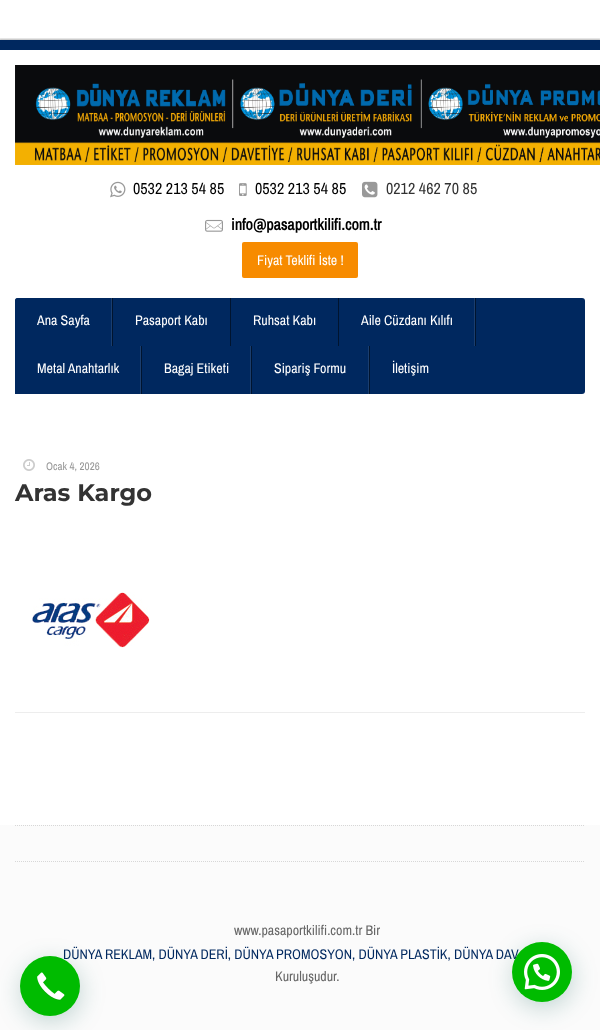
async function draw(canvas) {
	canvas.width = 600;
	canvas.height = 1030;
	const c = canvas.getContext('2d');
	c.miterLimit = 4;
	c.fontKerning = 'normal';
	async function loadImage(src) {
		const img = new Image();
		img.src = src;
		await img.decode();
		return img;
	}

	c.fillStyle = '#fff';
	c.fillRect(0, 0, 600, 1030);
	c.save();
	c.beginPath();
	c.rect(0, 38, 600, 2);
	c.clip();
	c.fillStyle = '#0000004d';
	c.filter = 'blur(1px)';
	c.beginPath();
	c.rect(-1, 39, 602, 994);
	c.fill();
	c.filter = 'none';
	c.restore();
	c.fillStyle = '#00285f';
	c.fillRect(0, 40, 600, 10);
	c.drawImage(await loadImage('img1.png'), 15, 65, 585, 100);
	c.drawImage(await loadImage('img2.png'), 110, 181, 16, 17);
	c.font = '16px Archivo Narrow';
	c.fillStyle = '#000';
	c.fillText('0532 213 54 85', 133, 194);
	c.drawImage(await loadImage('img3.png'), 239, 183, 8, 13);
	c.fillText('0532 213 54 85', 255, 194);
	c.drawImage(await loadImage('img4.png'), 362, 181, 16, 17);
	c.fillStyle = '#333';
	c.fillText('0212 462 70 85', 386, 194);
	c.drawImage(await loadImage('img5.png'), 205, 219, 18, 13);
	c.font = 'bold 16px Archivo Narrow';
	c.fillStyle = '#000';
	c.fillText('info@pasaportkilifi.com.tr', 231, 230);
	c.fillStyle = '#f78b00';
	c.beginPath();
	c.roundRect(242, 242, 116, 36, 2);
	c.fill();
	c.font = '14px Archivo Narrow';
	c.fillStyle = '#fff';
	c.fillText('Fiyat Teklifi İste !', 257, 265);
	c.fillStyle = '#00285f';
	c.beginPath();
	c.roundRect(15, 298, 570, 96, 3);
	c.fill();
	c.beginPath();
	c.roundRect(15, 298, 98, 48, [3, 0, 0, 3]);
	c.fill();
	c.fillStyle = '#00142f';
	c.fillRect(112, 298, 1, 48);
	c.fillStyle = '#fff';
	c.fillText('Ana Sayfa', 37, 325);
	c.fillStyle = '#1a3e6f';
	c.fillRect(111, 298, 1, 48);
	c.fillStyle = '#00142f';
	c.fillRect(230, 298, 1, 48);
	c.fillStyle = '#fff';
	c.fillText('Pasaport Kabı', 135, 325);
	c.fillStyle = '#00142f';
	c.fillRect(338, 298, 1, 48);
	c.fillStyle = '#fff';
	c.fillText('Ruhsat Kabı', 253, 325);
	c.fillStyle = '#00142f';
	c.fillRect(475, 298, 1, 48);
	c.fillStyle = '#fff';
	c.fillText('Aile Cüzdanı Kılıfı', 361, 325);
	for (const [x, y, w, h, color] of [
		[474, 298, 1, 48, '#1a3e6f'],
		[15, 391, 3, 3, '#00285f'],
		[141, 346, 1, 48, '#00142f'],
	]) {
		c.fillStyle = color;
		c.fillRect(x, y, w, h);
	}
	c.fillStyle = '#fff';
	c.fillText('Metal Anahtarlık', 37, 373);
	c.fillStyle = '#1a3e6f';
	c.fillRect(140, 346, 1, 48);
	c.fillStyle = '#00142f';
	c.fillRect(251, 346, 1, 48);
	c.fillStyle = '#fff';
	c.fillText('Bagaj Etiketi', 164, 373);
	c.fillStyle = '#1a3e6f';
	c.fillRect(250, 346, 1, 48);
	c.fillStyle = '#00142f';
	c.fillRect(369, 346, 1, 48);
	c.fillStyle = '#fff';
	c.fillText('Sipariş Formu', 274, 373);
	c.fillStyle = '#1a3e6f';
	c.fillRect(368, 346, 1, 48);
	c.fillStyle = '#fff';
	c.fillText('İletişim', 392, 373);
	c.drawImage(await loadImage('img6.png'), 23, 459, 12, 12);
	c.font = '11px Archivo Narrow';
	c.fillStyle = '#999';
	c.fillText('Ocak 4, 2026', 46, 470);
	c.font = '100 24px Montserrat';
	c.fillStyle = '#333';
	c.fillText('Aras Kargo', 15, 501);
	c.fillStyle = '#ededed';
	c.fillRect(15, 712, 570, 1);
	c.drawImage(await loadImage('img7.png'), 32, 592, 118, 56);
	c.fillStyle = '#fbfbfb';
	c.fillRect(0, 825, 600, 205);
	c.beginPath();
	c.moveTo(15, 825.5);
	c.lineTo(585, 825.5);
	c.strokeStyle = '#d7d7d7';
	c.setLineDash([1, 1]);
	c.stroke();
	c.beginPath();
	c.moveTo(15, 861.5);
	c.lineTo(585, 861.5);
	c.stroke();
	c.font = '14px Archivo Narrow';
	c.fillStyle = '#666';
	c.fillText('www.pasaportkilifi.com.tr Bir', 234, 935);
	c.fillStyle = '#00285f';
	c.fillText('DÜNYA REKLAM, DÜNYA DERİ, DÜNYA PROMOSYON, DÜNYA PLASTİK, DÜNYA DAV', 63, 959);
	c.fillStyle = '#666';
	c.fillText('Kuruluşudur.', 275, 981);
	c.fillStyle = '#075e543d';
	c.filter = 'blur(12px)';
	c.beginPath();
	c.roundRect(513, 948, 60, 60, 30);
	c.fill();
	c.filter = 'none';
	c.fillStyle = '#0b0';
	c.beginPath();
	c.arc(542, 972, 30, 0, 2 * Math.PI);
	c.fill();
	c.drawImage(await loadImage('img8.png'), 524, 954, 36, 36);
	c.fillStyle = '#075e543d';
	c.filter = 'blur(12px)';
	c.beginPath();
	c.roundRect(21, 962, 60, 60, 30);
	c.fill();
	c.filter = 'none';
	c.fillStyle = '#0b0';
	c.beginPath();
	c.arc(50, 986, 30, 0, 2 * Math.PI);
	c.fill();
	c.drawImage(await loadImage('img9.png'), 37, 972, 28, 29);
}

draw(document.querySelector('canvas'));
